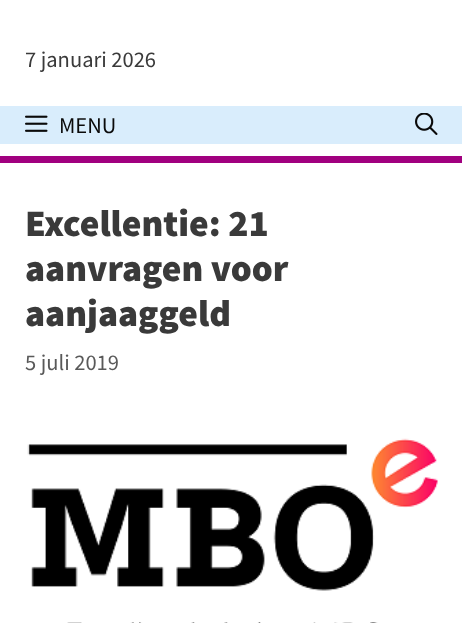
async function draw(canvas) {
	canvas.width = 462;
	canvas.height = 623;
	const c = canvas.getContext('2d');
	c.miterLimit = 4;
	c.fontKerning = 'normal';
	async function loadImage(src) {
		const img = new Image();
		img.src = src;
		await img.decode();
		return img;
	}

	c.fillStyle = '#fff';
	c.fillRect(0, 0, 462, 623);
	c.font = '22.5px Source Sans Pro';
	c.fillStyle = '#3a3a3a';
	c.fillText('7 januari 2026', 25, 67);
	c.fillStyle = '#d9edfc';
	c.fillRect(0, 106, 462, 38);
	c.drawImage(await loadImage('img1.png'), 25, 115, 23, 17);
	c.fillStyle = '#0a0a0a';
	c.fillText('MENU', 59, 133);
	c.drawImage(await loadImage('img2.png'), 415, 113, 23, 22);
	c.fillStyle = '#a1007f';
	c.fillRect(0, 156, 462, 7);
	c.font = '900 37.5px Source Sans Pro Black';
	c.fillStyle = '#3a3a3a';
	for (const [text, x, y] of [
		['Excellentie: 21', 25, 236],
		['aanvragen voor', 25, 281],
		['aanjaaggeld', 25, 326],
	]) {
		c.fillText(text, x, y);
	}
	c.font = '22.5px Source Sans Pro';
	c.fillStyle = '#595959';
	c.fillText('5 juli 2019', 25, 370);
	c.drawImage(await loadImage('img3.png'), 27, 438, 411, 185);
}

draw(document.querySelector('canvas'));
